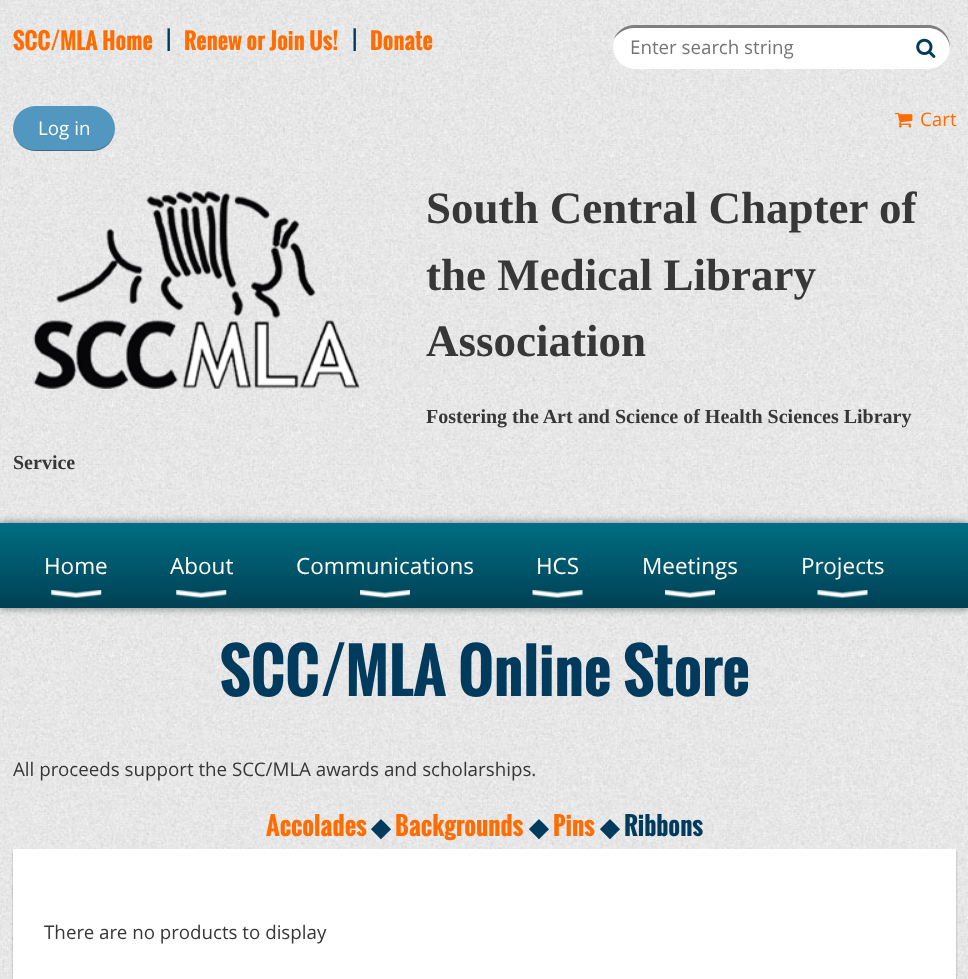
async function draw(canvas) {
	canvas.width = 968;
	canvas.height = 979;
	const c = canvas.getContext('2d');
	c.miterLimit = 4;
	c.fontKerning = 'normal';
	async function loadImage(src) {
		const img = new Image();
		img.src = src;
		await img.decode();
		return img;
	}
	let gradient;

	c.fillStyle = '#fff';
	c.fillRect(0, 0, 968, 979);
	c.drawImage(await loadImage('img1.png'), 0, 0, 968, 979);
	c.font = 'bold 22.5px Oswald';
	c.fillStyle = '#ff6c00';
	c.fillText('SCC/MLA Home', 13, 50);
	c.save();
	c.beginPath();
	c.rect(13, 25, 472, 26);
	c.clip();
	c.fillStyle = '#003a5c';
	c.fillText('|', 166, 50);
	c.restore();
	c.fillText('Renew or Join Us!', 184, 50);
	c.save();
	c.beginPath();
	c.rect(13, 25, 472, 26);
	c.clip();
	c.fillStyle = '#003a5c';
	c.fillText('|', 352, 50);
	c.restore();
	c.fillText('Donate', 370, 50);
	c.fillStyle = '#fff';
	c.beginPath();
	c.roundRect(613, 25, 337, 44, 22);
	c.fill();
	c.fillStyle = '#00000080';
	c.beginPath();
	c.moveTo(634, 28);
	c.lineTo(928, 28);
	c.bezierCurveTo(940, 28, 949, 37, 950, 48);
	c.lineTo(950, 47);
	c.bezierCurveTo(950, 35, 940, 25, 928, 25);
	c.lineTo(635, 25);
	c.bezierCurveTo(625, 25, 617, 31, 614, 39);
	c.bezierCurveTo(618, 33, 625, 28, 634, 28);
	c.closePath();
	c.fill();
	c.font = '18.75px Open Sans';
	c.fillStyle = '#757575';
	c.fillText('Enter search string', 630, 54);
	c.drawImage(await loadImage('img2.png'), 916, 38, 20, 20);
	c.drawImage(await loadImage('img3.png'), 895, 112, 18, 16);
	c.fillStyle = '#ff6c00';
	c.fillText('Cart', 920, 126);
	c.fillStyle = '#5297bf';
	c.beginPath();
	c.roundRect(13, 106, 102, 45, 22.5);
	c.fill();
	c.fillStyle = '#0000004d';
	c.beginPath();
	c.moveTo(17, 142);
	c.bezierCurveTo(21, 147, 28, 151, 36, 151);
	c.lineTo(92, 151);
	c.bezierCurveTo(105, 151, 115, 141, 115, 128);
	c.bezierCurveTo(115, 140, 105, 150, 92, 150);
	c.lineTo(35, 150);
	c.bezierCurveTo(28, 150, 22, 147, 17, 142);
	c.closePath();
	c.fill();
	c.fillStyle = '#fff';
	c.fillText('Log in', 38, 135);
	c.drawImage(await loadImage('img4.png'), 33, 191, 327, 198);
	c.font = 'bold 45px Liberation Serif';
	c.fillStyle = '#373737';
	for (const [text, x, y] of [
		['South Central Chapter of', 426, 223],
		['the Medical Library', 426, 290],
		['Association', 426, 356],
	]) {
		c.fillText(text, x, y);
	}
	c.font = 'bold 20px Liberation Serif';
	c.fillText('Fostering the Art and Science of Health Sciences Library', 426, 423);
	c.fillText('Service', 13, 469);
	c.fillStyle = '#00000080';
	c.filter = 'blur(4px)';
	c.beginPath();
	c.rect(0, 523, 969, 85);
	c.fill();
	c.filter = 'none';
	gradient = c.createLinearGradient(484, 522, 484, 608);
	gradient.addColorStop(0, '#006e83');
	gradient.addColorStop(1, '#004054');
	c.fillStyle = gradient;
	c.fillRect(0, 523, 968, 85);
	c.font = '22.5px Open Sans';
	c.fillStyle = '#fff';
	c.fillText('Home', 44, 574);
	c.drawImage(await loadImage('img5.png'), 51, 590, 51, 8);
	c.fillText('About', 170, 574);
	c.drawImage(await loadImage('img5.png'), 176, 590, 51, 8);
	c.fillText('Communications', 296, 574);
	c.drawImage(await loadImage('img6.png'), 360, 590, 50, 8);
	c.fillText('HCS', 536, 574);
	c.drawImage(await loadImage('img7.png'), 532, 590, 51, 8);
	c.fillText('Meetings', 642, 574);
	c.drawImage(await loadImage('img6.png'), 665, 590, 50, 8);
	c.fillText('Projects', 801, 574);
	c.drawImage(await loadImage('img7.png'), 817, 590, 51, 8);
	c.font = 'bold 60px Oswald';
	c.fillStyle = '#003a5c';
	c.fillText('SCC/MLA Online Store', 220, 696);
	c.font = '18.75px Open Sans';
	c.fillStyle = '#373737';
	c.fillText('All proceeds support the SCC/MLA awards and scholarships.', 13, 776);
	c.font = 'bold 25px Oswald';
	c.fillStyle = '#ff6c00';
	c.fillText('Accolades', 266, 836);
	c.font = 'bold 25px DejaVu Sans';
	c.fillStyle = '#003a5c';
	c.fillText('◆', 371, 836);
	c.font = 'bold 25px Oswald';
	c.fillStyle = '#ff6c00';
	c.fillText('Backgrounds', 395, 836);
	c.font = 'bold 25px DejaVu Sans';
	c.fillStyle = '#003a5c';
	c.fillText('◆', 529, 836);
	c.font = 'bold 25px Oswald';
	c.fillStyle = '#ff6c00';
	c.fillText('Pins', 553, 836);
	c.font = 'bold 25px DejaVu Sans';
	c.fillStyle = '#003a5c';
	c.fillText('◆', 600, 836);
	c.font = 'bold 25px Oswald';
	c.fillText('Ribbons', 624, 836);
	c.fillStyle = '#0000004d';
	c.filter = 'blur(1px)';
	c.beginPath();
	c.rect(13, 851, 943, 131);
	c.fill();
	c.filter = 'none';
	c.fillStyle = '#fff';
	c.fillRect(13, 849, 943, 130);
	c.font = '18.75px Open Sans';
	c.fillStyle = '#373737';
	c.fillText('There are no products to display', 44, 939);
}

draw(document.querySelector('canvas'));
